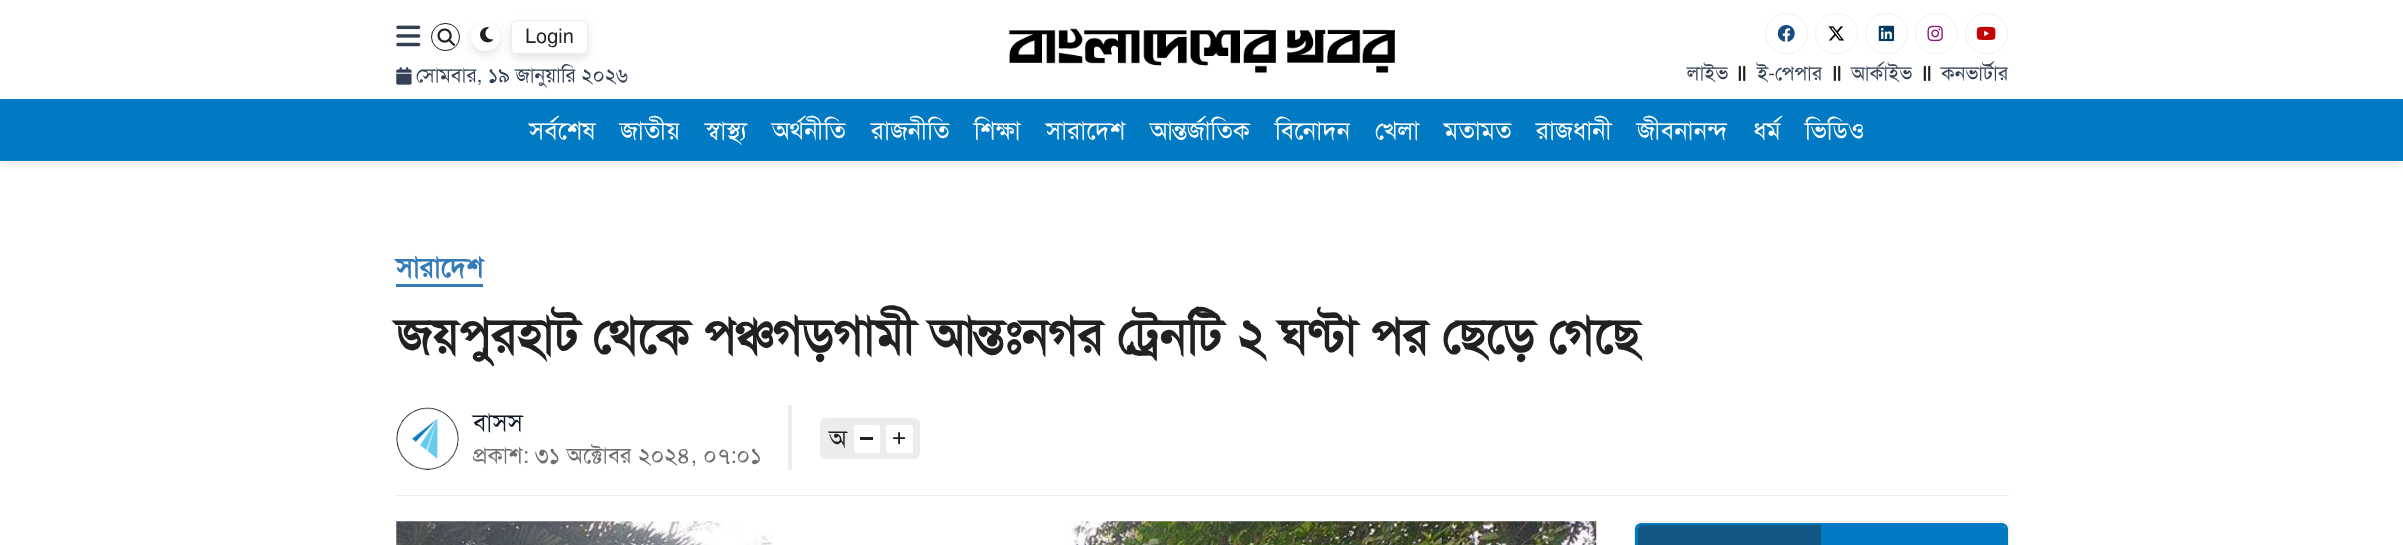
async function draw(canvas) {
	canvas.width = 2403;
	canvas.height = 545;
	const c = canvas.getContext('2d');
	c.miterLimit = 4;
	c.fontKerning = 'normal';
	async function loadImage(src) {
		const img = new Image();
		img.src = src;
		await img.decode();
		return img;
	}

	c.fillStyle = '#fff';
	c.fillRect(0, 0, 2403, 545);
	c.drawImage(await loadImage('img1.png'), 396, 25, 25, 22);
	c.beginPath();
	c.roundRect(431.5, 23.5, 28, 27, 13.5);
	c.strokeStyle = '#212121';
	c.stroke();
	c.drawImage(await loadImage('img2.png'), 437, 28, 18, 18);
	c.save();
	c.beginPath();
	c.moveTo(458, 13);
	c.lineTo(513, 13);
	c.lineTo(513, 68);
	c.lineTo(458, 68);
	c.closePath();
	c.moveTo(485, 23);
	c.lineTo(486, 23);
	c.bezierCurveTo(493.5, 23, 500, 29.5, 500, 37);
	c.bezierCurveTo(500, 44.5, 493.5, 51, 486, 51);
	c.lineTo(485, 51);
	c.bezierCurveTo(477.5, 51, 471, 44.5, 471, 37);
	c.bezierCurveTo(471, 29.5, 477.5, 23, 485, 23);
	c.closePath();
	c.clip('evenodd');
	c.fillStyle = '#bababa66';
	c.filter = 'blur(4px)';
	c.beginPath();
	c.roundRect(471, 26, 29, 29, 14.5);
	c.fill();
	c.filter = 'none';
	c.restore();
	c.drawImage(await loadImage('img3.png'), 480, 27, 14, 16);
	c.save();
	c.beginPath();
	c.moveTo(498, 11);
	c.lineTo(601, 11);
	c.lineTo(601, 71);
	c.lineTo(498, 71);
	c.closePath();
	c.moveTo(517, 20);
	c.lineTo(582, 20);
	c.bezierCurveTo(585.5, 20, 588, 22.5, 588, 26);
	c.lineTo(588, 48);
	c.bezierCurveTo(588, 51.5, 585.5, 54, 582, 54);
	c.lineTo(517, 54);
	c.bezierCurveTo(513.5, 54, 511, 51.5, 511, 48);
	c.lineTo(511, 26);
	c.bezierCurveTo(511, 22.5, 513.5, 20, 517, 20);
	c.closePath();
	c.clip('evenodd');
	c.fillStyle = '#bababa66';
	c.filter = 'blur(4px)';
	c.beginPath();
	c.roundRect(511, 24, 77, 34, 6);
	c.fill();
	c.filter = 'none';
	c.restore();
	c.beginPath();
	c.roundRect(511.5, 20.5, 76, 33, 5.5);
	c.strokeStyle = '#edebeb';
	c.stroke();
	c.font = '20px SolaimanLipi';
	c.fillStyle = '#212121';
	c.fillText('Login', 525, 43);
	c.drawImage(await loadImage('img4.png'), 396, 67, 16, 18);
	c.fillStyle = '#344054';
	c.fillText('সোমবার, ১৯ জানুয়ারি ২০২৬', 416, 82);
	c.drawImage(await loadImage('img5.png'), 1008, 28, 387, 45);
	c.beginPath();
	c.roundRect(1765.5, 13.5, 42, 40, 20);
	c.strokeStyle = '#f1f1f1';
	c.stroke();
	c.drawImage(await loadImage('img6.png'), 1777, 25, 18, 17);
	c.beginPath();
	c.roundRect(1815.5, 13.5, 42, 40, 20);
	c.stroke();
	c.drawImage(await loadImage('img7.png'), 1828, 26, 16, 15);
	c.beginPath();
	c.roundRect(1865.5, 13.5, 42, 40, 20);
	c.stroke();
	c.drawImage(await loadImage('img8.png'), 1878, 25, 17, 17);
	c.beginPath();
	c.roundRect(1915.5, 13.5, 42, 40, 20);
	c.stroke();
	c.drawImage(await loadImage('img9.png'), 1927, 25, 16, 17);
	c.beginPath();
	c.roundRect(1965.5, 13.5, 42, 40, 20);
	c.stroke();
	c.drawImage(await loadImage('img10.png'), 1976, 26, 20, 14);
	c.fillText('লাইভ', 1687, 80);
	c.drawImage(await loadImage('img11.png'), 1738, 65, 8, 17);
	c.fillText('ই-পেপার', 1757, 80);
	c.drawImage(await loadImage('img11.png'), 1833, 65, 8, 17);
	c.fillText('আর্কাইভ', 1851, 80);
	c.drawImage(await loadImage('img11.png'), 1923, 65, 8, 17);
	c.fillText('কনভার্টার', 1941, 80);
	c.fillStyle = '#1018281a';
	c.filter = 'blur(5px)';
	c.beginPath();
	c.rect(3, 106, 2398, 58);
	c.fill();
	c.filter = 'none';
	c.fillStyle = '#017ac3';
	c.fillRect(0, 99, 2403, 62);
	c.font = '25px SolaimanLipi';
	c.fillStyle = '#fff';
	for (const [text, x, y] of [
		['সর্বশেষ', 529, 139],
		['জাতীয়', 620, 139],
		['স্বাস্থ্য', 705, 139],
		['অর্থনীতি', 772, 139],
		['রাজনীতি', 871, 139],
		['শিক্ষা', 974, 139],
		['সারাদেশ', 1046, 139],
		['আন্তর্জাতিক', 1150, 139],
		['বিনোদন', 1275, 139],
		['খেলা', 1375, 139],
		['মতামত', 1444, 139],
		['রাজধানী', 1536, 139],
		['জীবনানন্দ', 1637, 139],
		['ধর্ম', 1753, 139],
		['ভিডিও', 1805, 139],
	]) {
		c.fillText(text, x, y);
	}
	c.font = 'bold 27.5px SolaimanLipi';
	c.fillStyle = '#337ab7';
	c.fillText('সারাদেশ', 396, 277);
	c.fillRect(396, 284, 87, 3);
	c.font = 'bold 50px SolaimanLipi';
	c.fillStyle = '#212121';
	c.fillText('জয়পুরহাট থেকে পঞ্চগড়গামী আন্তঃনগর ট্রেনটি ২ ঘণ্টা পর ছেড়ে গেছে', 396, 353);
	c.fillStyle = '#edebeb';
	c.fillRect(788, 405, 4, 65);
	c.drawImage(await loadImage('img12.png'), 396, 407, 63, 63);
	c.font = '25px SolaimanLipi';
	c.fillStyle = '#101828';
	c.fillText('বাসস', 473, 431);
	c.font = '22.5px SolaimanLipi';
	c.fillStyle = '#6f6d6d';
	c.fillText('প্রকাশ: ৩১ অক্টোবর ২০২৪, ০৭:০১', 473, 463);
	c.fillStyle = '#edebeb';
	c.beginPath();
	c.roundRect(820, 418, 100, 41, 6);
	c.fill();
	c.font = '25px SolaimanLipi';
	c.fillStyle = '#212121';
	c.fillText('অ', 829, 447);
	c.fillStyle = '#fff';
	c.beginPath();
	c.roundRect(854, 425, 26, 28, 2.5);
	c.fill();
	c.fillStyle = '#212121';
	c.fillRect(860, 437, 13, 3);
	c.fillStyle = '#fff';
	c.beginPath();
	c.roundRect(886, 425, 27, 28, 2.5);
	c.fill();
	c.drawImage(await loadImage('img13.png'), 893, 432, 13, 13);
	c.fillStyle = '#edebeb';
	c.fillRect(396, 495, 1613, 1);
	c.drawImage(await loadImage('img14.png'), 396, 521, 1201, 24);
	c.beginPath();
	c.roundRect(1634.5, 521.5, 374, 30, 5.5);
	c.strokeStyle = '#edebeb';
	c.stroke();
	c.beginPath();
	c.roundRect(1636.5, 524.5, 370, 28, 4.5);
	c.strokeStyle = '#017ac3';
	c.lineWidth = 3;
	c.stroke();
	c.fillStyle = '#115783';
	c.beginPath();
	c.moveTo(1642, 525);
	c.lineTo(1821, 525);
	c.lineTo(1821, 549);
	c.lineTo(1638, 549);
	c.lineTo(1638, 529);
	c.bezierCurveTo(1638, 527, 1640, 525, 1642, 525);
	c.closePath();
	c.fill();
	c.fillStyle = '#017ac3';
	c.beginPath();
	c.moveTo(1821, 525);
	c.lineTo(2001, 525);
	c.bezierCurveTo(2003, 525, 2005, 527, 2005, 529);
	c.lineTo(2005, 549);
	c.lineTo(1821, 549);
	c.closePath();
	c.fill();
}

draw(document.querySelector('canvas'));
